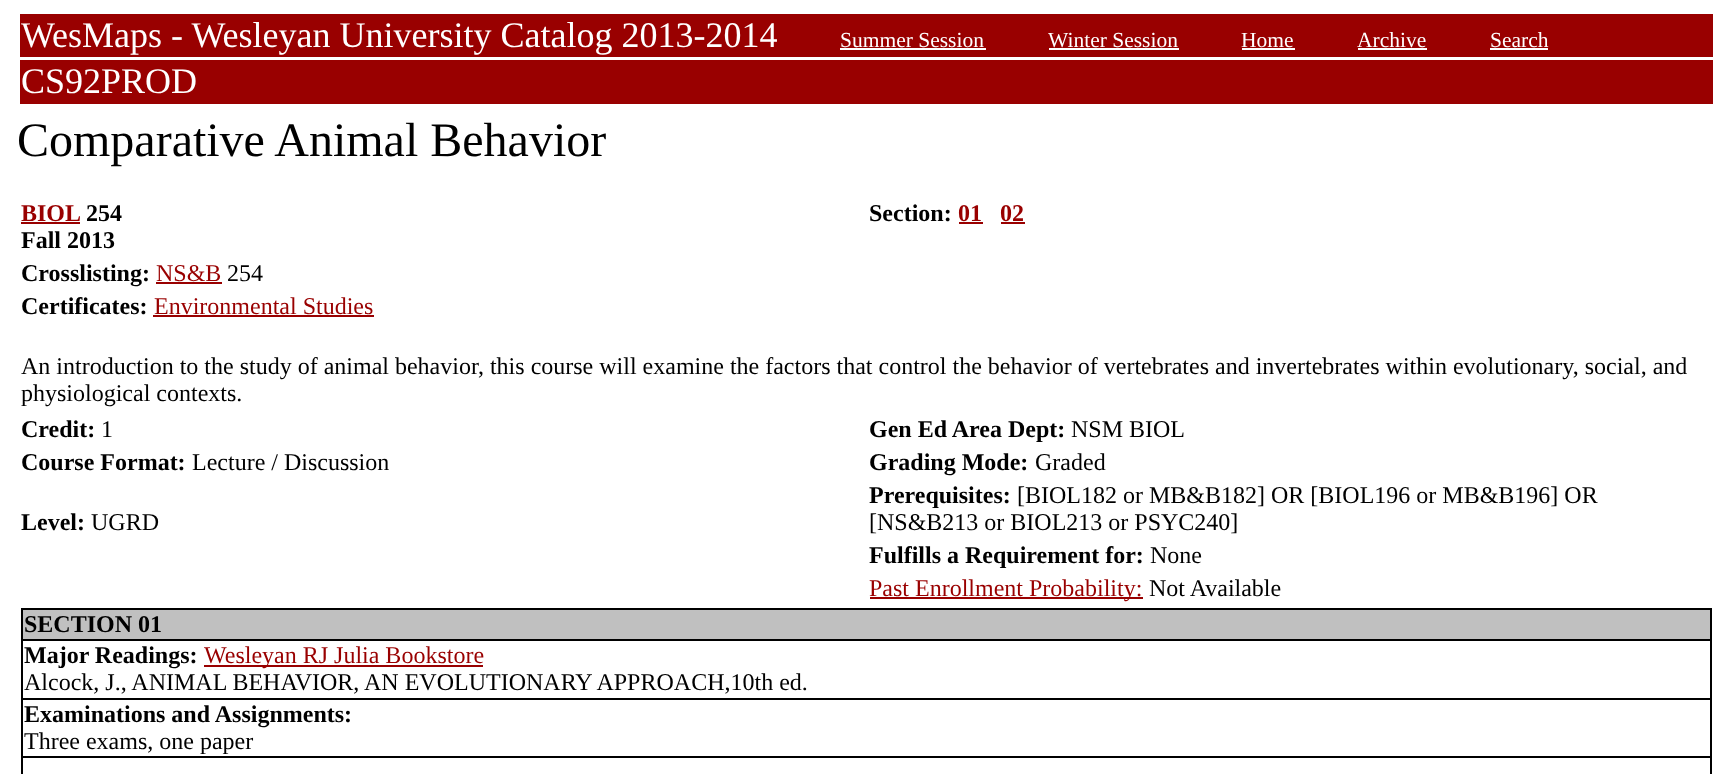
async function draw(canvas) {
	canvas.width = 1732;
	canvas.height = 774;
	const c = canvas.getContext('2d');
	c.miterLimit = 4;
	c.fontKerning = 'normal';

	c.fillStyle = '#fff';
	c.fillRect(0, 0, 1732, 774);
	c.fillStyle = '#900';
	c.fillRect(20, 14, 1693, 43);
	c.font = '36px Liberation Serif';
	c.fillStyle = '#fff';
	c.fillText('WesMaps - Wesleyan University Catalog 2013-2014', 21, 47);
	c.font = '21.5px Liberation Serif';
	c.fillText('Summer Session', 840, 47);
	c.fillRect(840, 48, 146, 2);
	c.fillText('Winter Session', 1048, 47);
	c.fillRect(1049, 48, 130, 2);
	c.fillText('Home', 1241, 47);
	c.fillRect(1242, 48, 53, 2);
	c.fillText('Archive', 1357, 47);
	c.fillRect(1358, 48, 69, 2);
	c.fillText('Search', 1490, 47);
	c.fillRect(1490, 48, 58, 2);
	c.fillStyle = '#900';
	c.fillRect(20, 60, 1693, 44);
	c.font = '36px Liberation Serif';
	c.fillStyle = '#fff';
	c.fillText('CS92PROD', 21, 93);
	c.font = '48px Liberation Serif';
	c.fillStyle = '#000';
	c.fillText('Comparative Animal Behavior', 17, 156);
	c.font = 'bold 24px Liberation Serif';
	c.fillStyle = '#900';
	c.fillText('BIOL', 21, 221);
	c.fillRect(21, 222, 59, 2);
	c.fillStyle = '#000';
	for (const [text, x, y] of [
		['254', 86, 221],
		['Fall 2013', 21, 248],
		['Section:', 869, 221],
	]) {
		c.fillText(text, x, y);
	}
	c.fillStyle = '#900';
	c.fillText('01', 958, 221);
	c.fillRect(959, 222, 24, 2);
	c.fillText('02', 1000, 221);
	c.fillRect(1001, 222, 24, 2);
	c.fillStyle = '#000';
	c.fillText('Crosslisting:', 21, 281);
	c.font = '24px Liberation Serif';
	c.fillStyle = '#900';
	c.fillText('NS&B', 156, 281);
	c.fillRect(156, 282, 66, 2);
	c.fillStyle = '#000';
	c.fillText('254', 227, 281);
	c.font = 'bold 24px Liberation Serif';
	c.fillText('Certificates:', 21, 314);
	c.font = '24px Liberation Serif';
	c.fillStyle = '#900';
	c.fillText('Environmental Studies', 154, 314);
	c.fillRect(153, 315, 221, 2);
	c.fillStyle = '#000';
	c.fillText('An introduction to the study of animal behavior, this course will examine the factors that control the behavior of vertebrates and invertebrates within evolutionary, social, and', 21, 374);
	c.fillText('physiological contexts.', 21, 401);
	c.font = 'bold 24px Liberation Serif';
	c.fillText('Credit:', 21, 437);
	c.font = '24px Liberation Serif';
	c.fillText('1', 101, 437);
	c.font = 'bold 24px Liberation Serif';
	c.fillText('Gen Ed Area Dept:', 869, 437);
	c.font = '24px Liberation Serif';
	c.fillText('NSM BIOL', 1071, 437);
	c.font = 'bold 24px Liberation Serif';
	c.fillText('Course Format:', 21, 470);
	c.font = '24px Liberation Serif';
	c.fillText('Lecture / Discussion', 192, 470);
	c.font = 'bold 24px Liberation Serif';
	c.fillText('Grading Mode:', 869, 470);
	c.font = '24px Liberation Serif';
	c.fillText('Graded', 1035, 470);
	c.font = 'bold 24px Liberation Serif';
	c.fillText('Level:', 21, 530);
	c.font = '24px Liberation Serif';
	c.fillText('UGRD', 91, 530);
	c.font = 'bold 24px Liberation Serif';
	c.fillText('Prerequisites:', 869, 503);
	c.font = '24px Liberation Serif';
	c.fillText('[BIOL182 or MB&B182] OR [BIOL196 or MB&B196] OR', 1017, 503);
	c.fillText('[NS&B213 or BIOL213 or PSYC240]', 869, 530);
	c.font = 'bold 24px Liberation Serif';
	c.fillText('Fulfills a Requirement for:', 869, 563);
	c.font = '24px Liberation Serif';
	c.fillText('None', 1150, 563);
	c.fillStyle = '#900';
	c.fillRect(870, 597, 273, 2);
	c.fillText('Past Enrollment Probability:', 869, 596);
	c.fillStyle = '#000';
	c.fillText('Not Available', 1149, 596);
	for (const [x, y, w, h, color] of [
		[21, 608, 1691, 2, '#000'],
		[1710, 608, 2, 166, '#000'],
		[21, 608, 2, 166, '#000'],
		[23, 610, 1687, 29, '#c0c0c0'],
	]) {
		c.fillStyle = color;
		c.fillRect(x, y, w, h);
	}
	c.font = 'bold 24px Liberation Serif';
	c.fillStyle = '#000';
	c.fillText('SECTION 01', 24, 632);
	c.fillRect(21, 639, 1691, 2);
	c.fillText('Major Readings:', 24, 663);
	c.fillStyle = '#900';
	c.fillRect(204, 665, 279, 2);
	c.font = '24px Liberation Serif';
	c.fillText('Wesleyan RJ Julia Bookstore', 204, 663);
	c.fillStyle = '#000';
	c.fillText('Alcock, J., ANIMAL BEHAVIOR, AN EVOLUTIONARY APPROACH,10th ed.', 24, 690);
	c.fillRect(21, 698, 1691, 2);
	c.font = 'bold 24px Liberation Serif';
	c.fillText('Examinations and Assignments:', 24, 722);
	c.font = '24px Liberation Serif';
	c.fillText('Three exams, one paper', 24, 749);
	c.fillRect(21, 756, 1691, 2);
}

draw(document.querySelector('canvas'));
